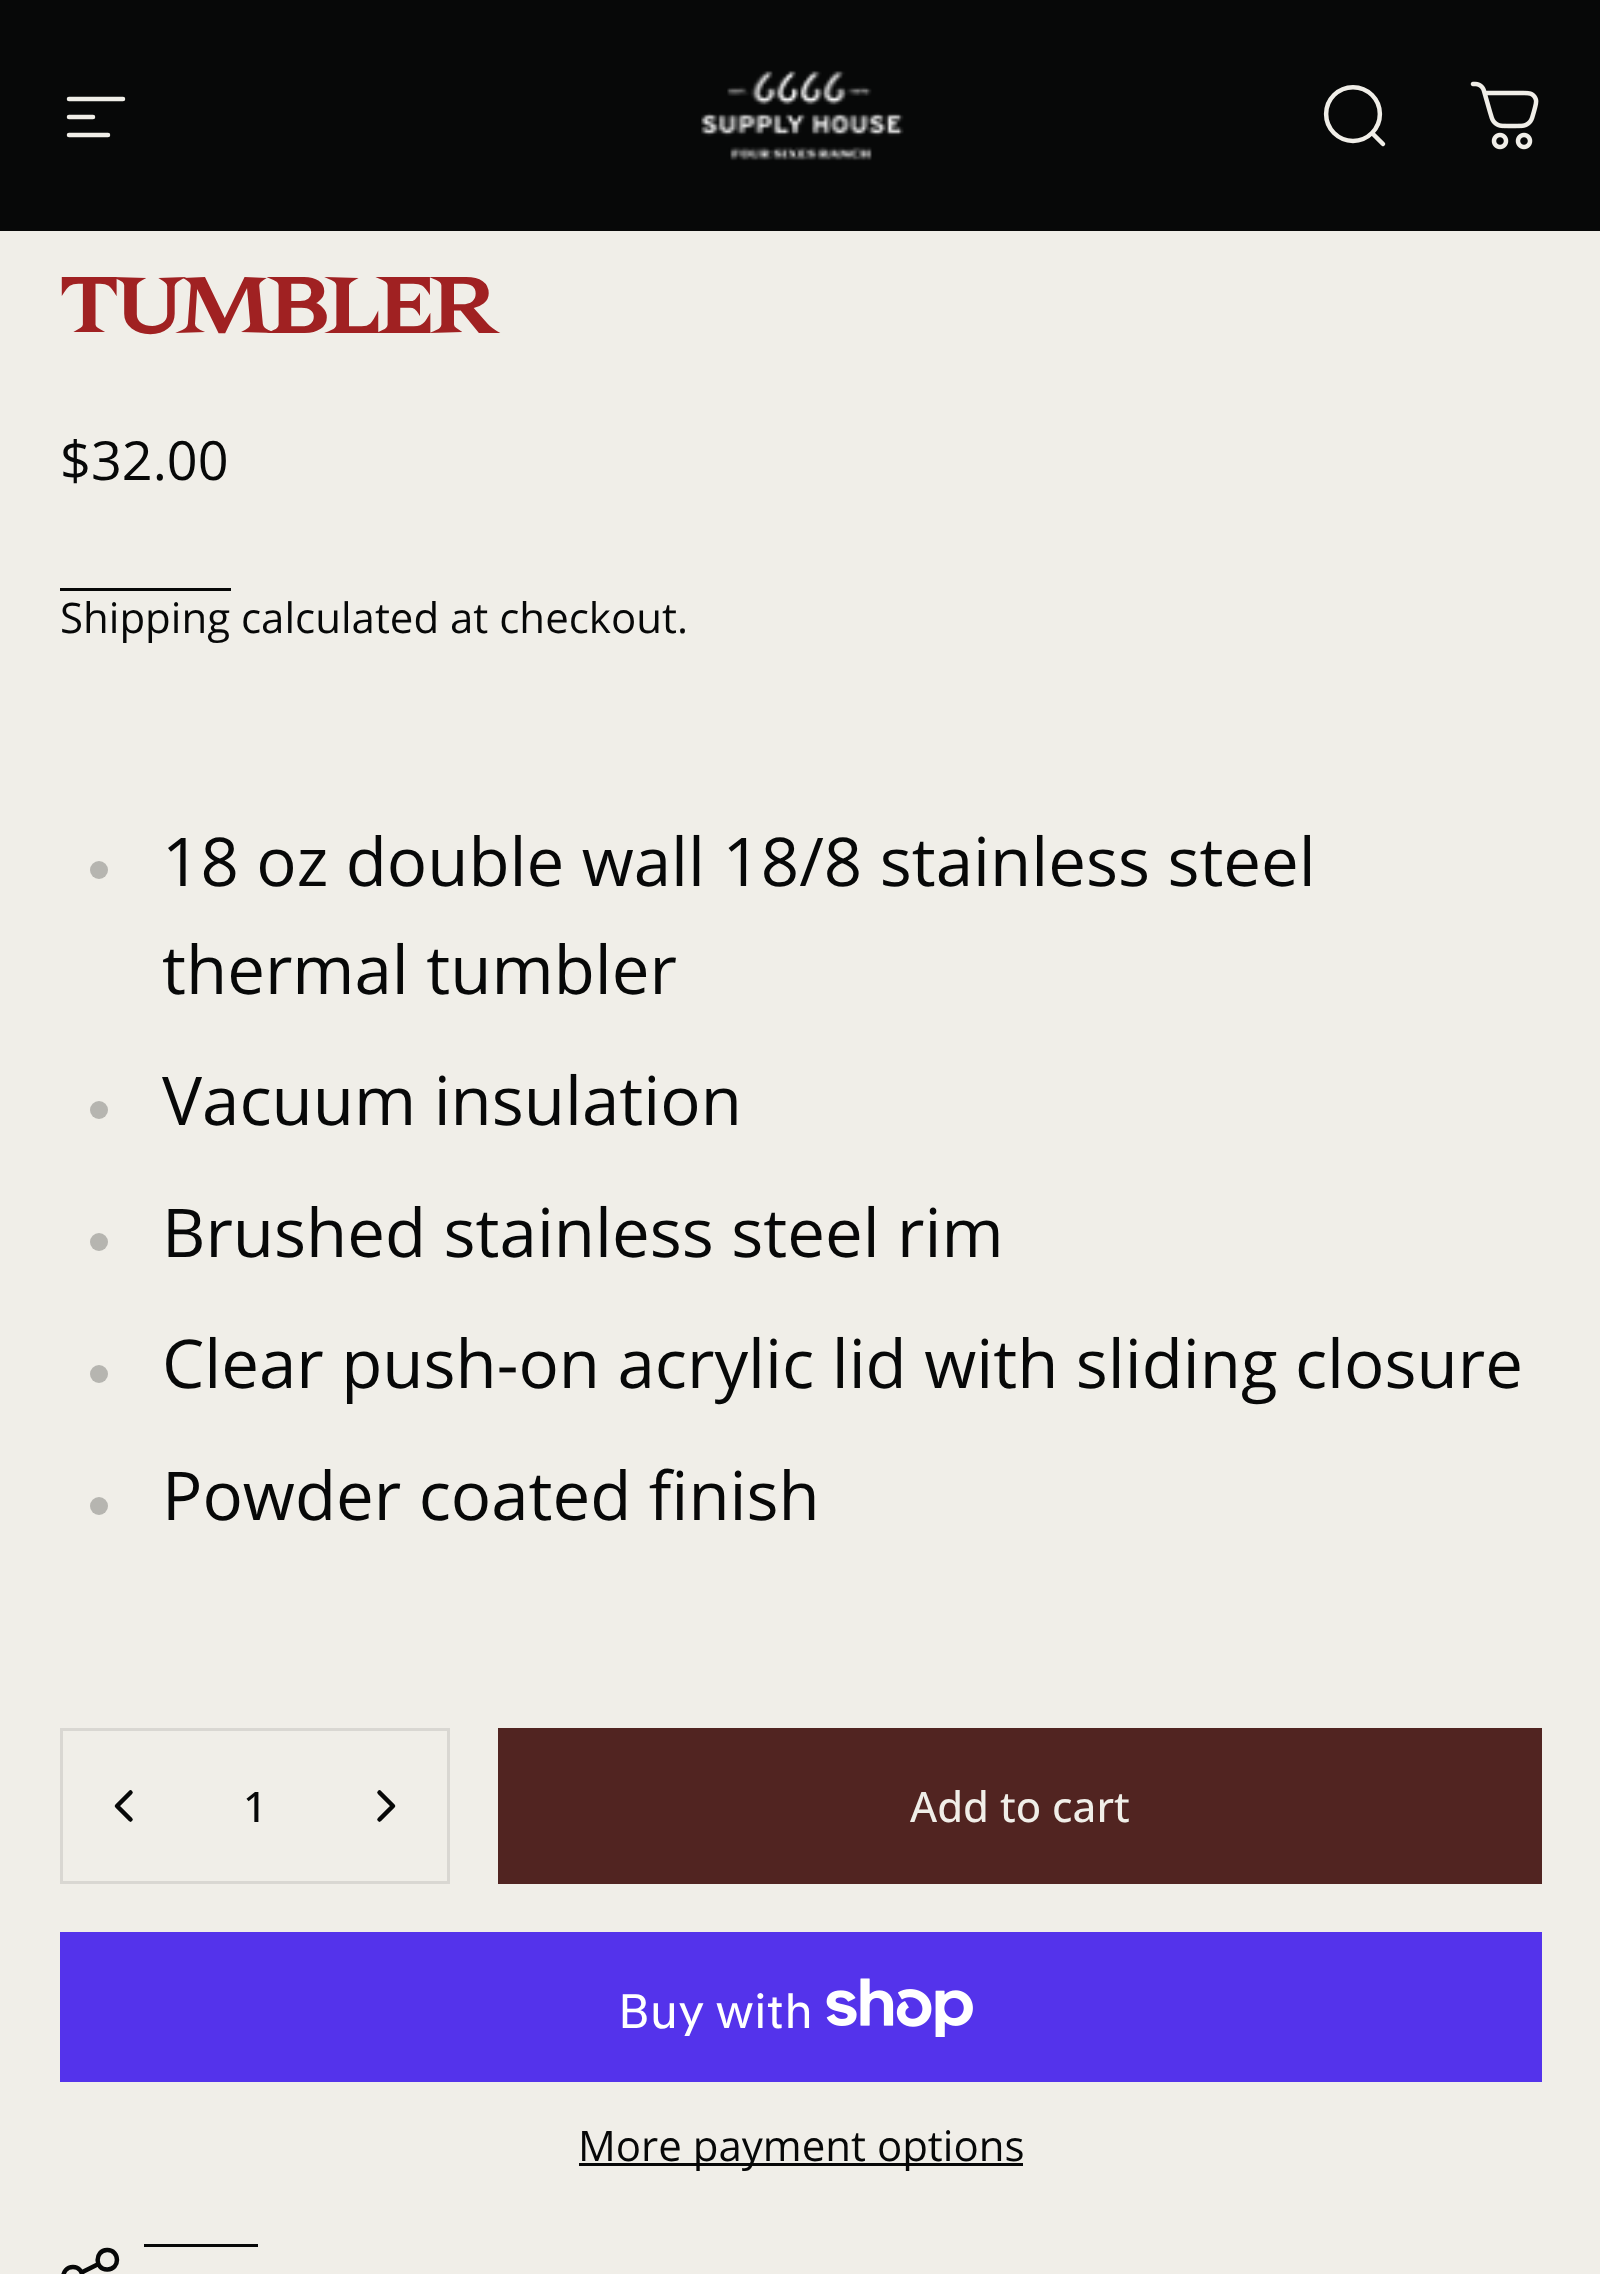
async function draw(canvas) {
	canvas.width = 1600;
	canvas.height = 2274;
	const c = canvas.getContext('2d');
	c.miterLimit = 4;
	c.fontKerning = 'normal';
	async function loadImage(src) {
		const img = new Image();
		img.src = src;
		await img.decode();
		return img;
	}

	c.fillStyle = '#f0eee8';
	c.fillRect(0, 0, 1600, 2274);
	c.fillStyle = '#070808';
	c.fillRect(0, 0, 1600, 231);
	c.beginPath();
	c.moveTo(69, 99);
	c.lineTo(123, 99);
	c.moveTo(69, 117);
	c.lineTo(93, 117);
	c.moveTo(69, 135);
	c.lineTo(108, 135);
	c.strokeStyle = '#f0eee8';
	c.lineWidth = 4.5;
	c.lineCap = 'round';
	c.stroke();
	c.drawImage(await loadImage('img1.png'), 701, 70, 203, 91);
	c.beginPath();
	c.moveTo(1383, 144);
	c.lineTo(1372, 133);
	c.moveTo(1372, 133);
	c.bezierCurveTo(1382.5, 122.5, 1382.5, 105.5, 1372, 95);
	c.bezierCurveTo(1361.5, 84.5, 1344.5, 84.5, 1334, 95);
	c.bezierCurveTo(1323.5, 105.5, 1323.5, 122.5, 1334, 133);
	c.bezierCurveTo(1344.5, 143.5, 1361.5, 143.5, 1372, 133);
	c.closePath();
	c.stroke();
	c.drawImage(await loadImage('img2.png'), 1470, 81, 69, 69);
	c.font = 'bold 72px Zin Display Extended';
	c.fillStyle = '#a02122';
	c.fillText('TUMBLER', 60, 333);
	c.font = '54px Open Sans';
	c.fillStyle = '#070808';
	c.fillText('$32.00', 60, 480);
	c.font = '42px Open Sans';
	c.fillText('Shipping', 60, 633);
	c.fillRect(60, 588, 171, 3);
	c.fillText('calculated at checkout.', 241, 633);
	c.fillStyle = '#b6b5b0';
	c.beginPath();
	c.arc(99, 870, 9, 0, 2 * Math.PI);
	c.fill();
	c.font = '67.2px Open Sans';
	c.fillStyle = '#070808';
	c.fillText('18 oz double wall 18/8 stainless steel', 162, 886);
	c.fillText('thermal tumbler', 162, 994);
	c.fillStyle = '#b6b5b0';
	c.beginPath();
	c.arc(99, 1110, 9, 0, 2 * Math.PI);
	c.fill();
	c.fillStyle = '#070808';
	c.fillText('Vacuum insulation', 162, 1125);
	c.fillStyle = '#b6b5b0';
	c.beginPath();
	c.arc(99, 1242, 9, 0, 2 * Math.PI);
	c.fill();
	c.fillStyle = '#070808';
	c.fillText('Brushed stainless steel rim', 162, 1257);
	c.fillStyle = '#b6b5b0';
	c.beginPath();
	c.arc(99, 1374, 9, 0, 2 * Math.PI);
	c.fill();
	c.fillStyle = '#070808';
	c.fillText('Clear push-on acrylic lid with sliding closure', 162, 1388);
	c.fillStyle = '#b6b5b0';
	c.beginPath();
	c.arc(99, 1506, 9, 0, 2 * Math.PI);
	c.fill();
	c.fillStyle = '#070808';
	c.fillText('Powder coated finish', 162, 1520);
	c.strokeStyle = '#d9d7d2';
	c.lineWidth = 3;
	c.strokeRect(61.5, 1729.5, 387, 153);
	c.beginPath();
	c.moveTo(130.5, 1792.5);
	c.lineTo(117, 1806);
	c.lineTo(130.5, 1819.5);
	c.strokeStyle = '#070808';
	c.lineWidth = 4.5;
	c.lineJoin = 'round';
	c.stroke();
	c.font = '500 42px Open Sans';
	c.fillText('1', 243, 1822);
	c.beginPath();
	c.moveTo(379.5, 1792.5);
	c.lineTo(393, 1806);
	c.lineTo(379.5, 1819.5);
	c.stroke();
	c.fillStyle = '#512421';
	c.fillRect(498, 1728, 1044, 156);
	c.fillStyle = '#f0eee8';
	c.fillText('Add to cart', 910, 1822);
	c.fillStyle = '#5433eb';
	c.fillRect(60, 1932, 1482, 150);
	c.font = '48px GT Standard';
	c.fillStyle = '#fff';
	c.fillText('Buy with', 618, 2028);
	c.drawImage(await loadImage('img3.png'), 826, 1978, 147, 59);
	c.fillStyle = '#070808';
	c.fillRect(579, 2163, 444, 3);
	c.font = '42px Open Sans';
	c.fillText('More payment options', 578, 2161);
	c.fillRect(144, 2244, 114, 3);
	c.beginPath();
	c.moveTo(81.5, 2272.5);
	c.lineTo(98.5, 2264);
	c.moveTo(81.5, 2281);
	c.lineTo(98.5, 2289.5);
	c.moveTo(73, 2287);
	c.bezierCurveTo(85.5, 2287, 85.5, 2267, 73, 2267);
	c.bezierCurveTo(60, 2267, 60, 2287, 73, 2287);
	c.closePath();
	c.moveTo(107, 2269.5);
	c.bezierCurveTo(120.5, 2270, 120, 2249.5, 107, 2250);
	c.bezierCurveTo(94.5, 2250.5, 94.5, 2269.5, 107, 2269.5);
	c.closePath();
	c.moveTo(107, 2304);
	c.bezierCurveTo(120.5, 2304, 120, 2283.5, 107, 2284.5);
	c.bezierCurveTo(94.5, 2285, 94.5, 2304, 107, 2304);
	c.closePath();
	c.stroke();
}

draw(document.querySelector('canvas'));
